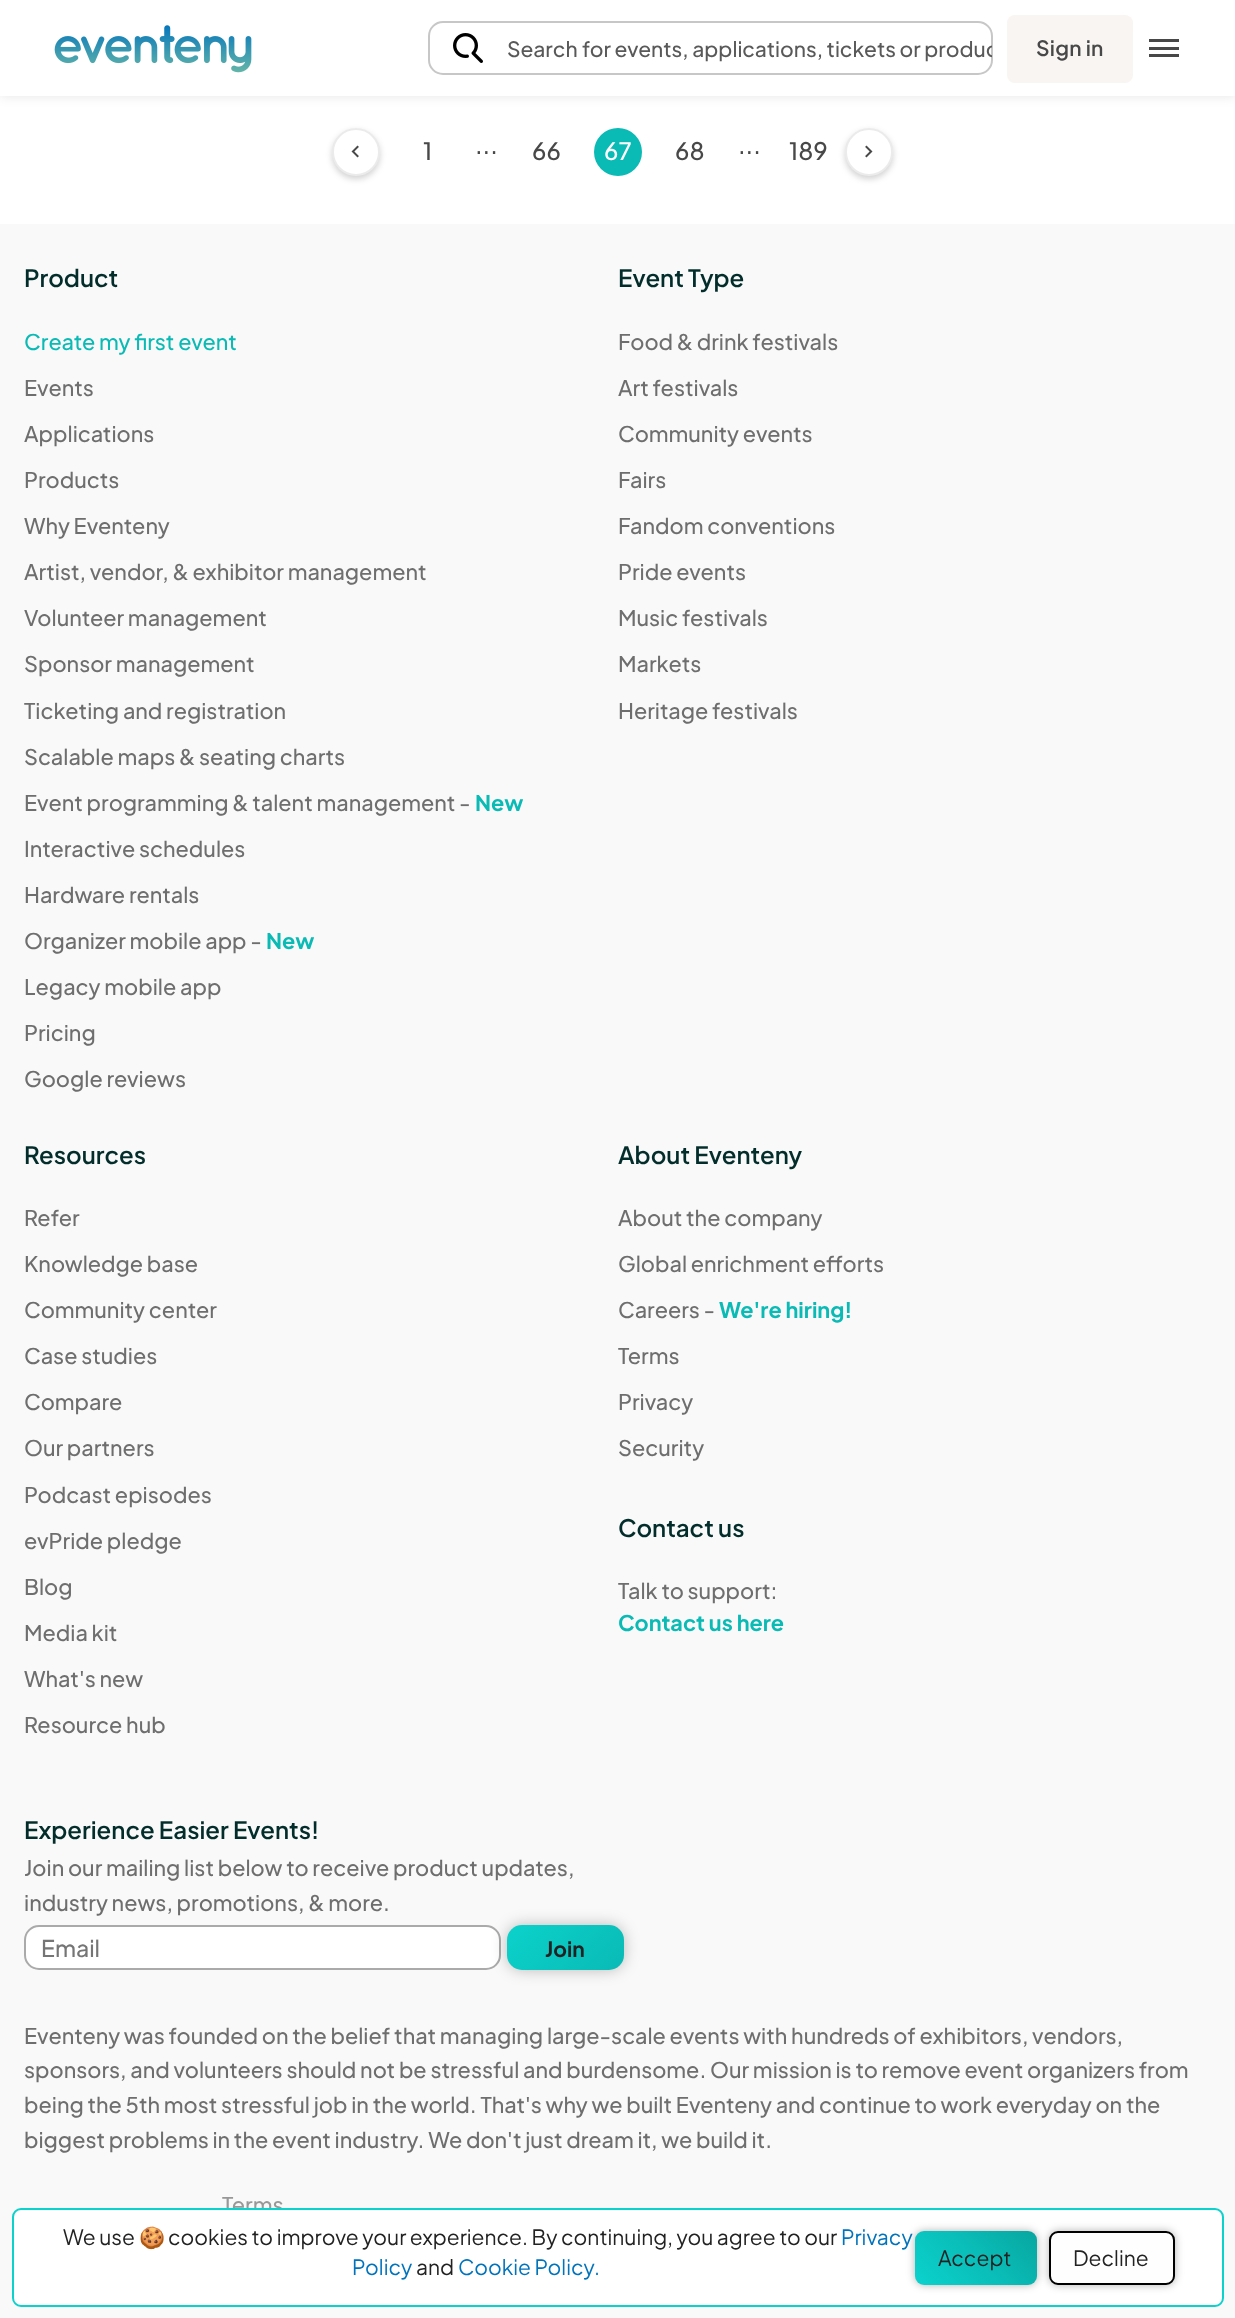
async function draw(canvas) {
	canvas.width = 1235;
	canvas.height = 2318;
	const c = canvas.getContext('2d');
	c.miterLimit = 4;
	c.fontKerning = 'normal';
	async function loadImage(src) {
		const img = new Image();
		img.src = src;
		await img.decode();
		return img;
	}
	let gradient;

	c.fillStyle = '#fff';
	c.fillRect(0, 0, 1235, 2318);
	c.fillStyle = '#0000001a';
	c.filter = 'blur(6px)';
	c.beginPath();
	c.rect(0, 0, 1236, 96);
	c.fill();
	c.filter = 'none';
	c.fillStyle = '#fff';
	c.fillRect(0, 0, 1235, 96);
	c.drawImage(await loadImage('img1.png'), 54, 25, 198, 48);
	c.beginPath();
	c.roundRect(429, 22, 563, 52, 14);
	c.strokeStyle = '#c7c7c7';
	c.lineWidth = 2;
	c.stroke();
	c.drawImage(await loadImage('img2.png'), 453, 33, 30, 30);
	c.font = '500 21px "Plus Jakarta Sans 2"';
	c.fillStyle = '#595959';
	c.fillText('Search', 507, 57);
	c.save();
	c.beginPath();
	c.roundRect(429, 23, 563, 51, 14);
	c.clip();
	c.fillText('for events, applications, tickets or produc', 582, 57);
	c.restore();
	c.fillStyle = '#f8f5f2';
	c.beginPath();
	c.roundRect(1007, 15, 126, 68, 8);
	c.fill();
	c.letterSpacing = '0.25px';
	c.font = '600 21px Plus Jakarta Sans';
	c.fillStyle = '#484848';
	c.fillText('Sign in', 1036, 56);
	for (const [x, y, w, h, color] of [
		[1149, 47, 30, 3, '#484848'],
		[1149, 39, 30, 3, '#484848'],
		[1149, 54, 30, 3, '#484848'],
	]) {
		c.fillStyle = color;
		c.fillRect(x, y, w, h);
	}
	c.fillStyle = '#0000002e';
	c.filter = 'blur(3px)';
	c.beginPath();
	c.roundRect(332, 131, 48, 48, 24);
	c.fill();
	c.filter = 'none';
	c.fillStyle = '#fff';
	c.beginPath();
	c.arc(356, 152, 24, 0, 2 * Math.PI);
	c.fill();
	c.beginPath();
	c.arc(356, 152, 23, 0, 2 * Math.PI);
	c.strokeStyle = '#00000014';
	c.stroke();
	c.drawImage(await loadImage('img3.png'), 351, 145, 8, 13);
	c.letterSpacing = '0px';
	c.font = '500 24px Plus Jakarta Sans';
	c.fillStyle = '#484848';
	for (const [text, x, y] of [
		['1', 423, 160],
		['...', 475, 154],
		['66', 532, 160],
	]) {
		c.fillText(text, x, y);
	}
	c.fillStyle = '#0abab5';
	c.beginPath();
	c.arc(618, 152, 24, 0, 2 * Math.PI);
	c.fill();
	c.fillStyle = '#fff';
	c.fillText('67', 604, 160);
	c.fillStyle = '#484848';
	for (const [text, x, y] of [
		['68', 675, 160],
		['...', 738, 154],
		['189', 789, 160],
	]) {
		c.fillText(text, x, y);
	}
	c.fillStyle = '#0000002e';
	c.filter = 'blur(3px)';
	c.beginPath();
	c.roundRect(845, 131, 48, 48, 24);
	c.fill();
	c.filter = 'none';
	c.fillStyle = '#fff';
	c.beginPath();
	c.arc(869, 152, 24, 0, 2 * Math.PI);
	c.fill();
	c.beginPath();
	c.arc(869, 152, 23, 0, 2 * Math.PI);
	c.stroke();
	c.drawImage(await loadImage('img4.png'), 865, 145, 8, 13);
	c.fillStyle = '#f9f9f9';
	c.fillRect(0, 224, 1235, 2094);
	c.font = '600 24px Plus Jakarta Sans';
	c.fillStyle = '#022d2b';
	c.fillText('Product', 24, 287);
	c.font = '500 21.65px "Plus Jakarta Sans 2"';
	c.fillStyle = '#0abab5';
	c.fillText('Create my first event', 24, 350);
	c.fillStyle = '#6e6e6e';
	for (const [text, x, y] of [
		['Events', 24, 396],
		['Applications', 24, 442],
		['Products', 24, 488],
		['Why Eventeny', 24, 534],
		['Artist, vendor, & exhibitor management', 24, 580],
		['Volunteer management', 24, 626],
		['Sponsor management', 24, 672],
		['Ticketing and registration', 24, 719],
		['Scalable maps & seating charts', 24, 765],
		['Event programming & talent management -', 24, 811],
	]) {
		c.fillText(text, x, y);
	}
	c.font = 'bold 21.65px Plus Jakarta Sans';
	c.fillStyle = '#0abab5';
	c.fillText('New', 475, 811);
	c.font = '500 21.65px "Plus Jakarta Sans 2"';
	c.fillStyle = '#6e6e6e';
	for (const [text, x, y] of [
		['Interactive schedules', 24, 857],
		['Hardware rentals', 24, 903],
		['Organizer mobile app -', 24, 949],
	]) {
		c.fillText(text, x, y);
	}
	c.font = 'bold 21.65px Plus Jakarta Sans';
	c.fillStyle = '#0abab5';
	c.fillText('New', 266, 949);
	c.font = '500 21.65px "Plus Jakarta Sans 2"';
	c.fillStyle = '#6e6e6e';
	for (const [text, x, y] of [
		['Legacy mobile app', 24, 995],
		['Pricing', 24, 1041],
		['Google reviews', 24, 1087],
	]) {
		c.fillText(text, x, y);
	}
	c.font = '600 24px Plus Jakarta Sans';
	c.fillStyle = '#022d2b';
	c.fillText('Event Type', 618, 287);
	c.font = '500 21.65px "Plus Jakarta Sans 2"';
	c.fillStyle = '#6e6e6e';
	for (const [text, x, y] of [
		['Food & drink festivals', 618, 350],
		['Art festivals', 618, 396],
		['Community events', 618, 442],
		['Fairs', 618, 488],
		['Fandom conventions', 618, 534],
		['Pride events', 618, 580],
		['Music festivals', 618, 626],
		['Markets', 618, 672],
		['Heritage festivals', 618, 719],
	]) {
		c.fillText(text, x, y);
	}
	c.font = '600 24px Plus Jakarta Sans';
	c.fillStyle = '#022d2b';
	c.fillText('Resources', 24, 1164);
	c.font = '500 21.65px "Plus Jakarta Sans 2"';
	c.fillStyle = '#6e6e6e';
	for (const [text, x, y] of [
		['Refer', 24, 1226],
		['Knowledge base', 24, 1272],
		['Community center', 24, 1318],
		['Case studies', 24, 1364],
		['Compare', 24, 1410],
		['Our partners', 24, 1456],
		['Podcast episodes', 24, 1503],
		['evPride pledge', 24, 1549],
		['Blog', 24, 1595],
		['Media kit', 24, 1641],
		['What\'s new', 24, 1687],
		['Resource hub', 24, 1733],
	]) {
		c.fillText(text, x, y);
	}
	c.font = '600 24px Plus Jakarta Sans';
	c.fillStyle = '#022d2b';
	c.fillText('About Eventeny', 618, 1164);
	c.font = '500 21.65px "Plus Jakarta Sans 2"';
	c.fillStyle = '#6e6e6e';
	for (const [text, x, y] of [
		['About the company', 618, 1226],
		['Global enrichment efforts', 618, 1272],
		['Careers -', 618, 1318],
	]) {
		c.fillText(text, x, y);
	}
	c.font = 'bold 21.65px Plus Jakarta Sans';
	c.fillStyle = '#0abab5';
	c.fillText('We\'re hiring!', 719, 1318);
	c.font = '500 21.65px "Plus Jakarta Sans 2"';
	c.fillStyle = '#6e6e6e';
	for (const [text, x, y] of [
		['Terms', 618, 1364],
		['Privacy', 618, 1410],
		['Security', 618, 1456],
	]) {
		c.fillText(text, x, y);
	}
	c.font = '600 24px Plus Jakarta Sans';
	c.fillStyle = '#022d2b';
	c.fillText('Contact us', 618, 1537);
	c.font = '500 21.65px "Plus Jakarta Sans 2"';
	c.fillStyle = '#6e6e6e';
	c.fillText('Talk to support:', 618, 1599);
	c.font = 'bold 21.65px Plus Jakarta Sans';
	c.fillStyle = '#0abab5';
	c.fillText('Contact us here', 618, 1631);
	c.font = '600 24px Plus Jakarta Sans';
	c.fillStyle = '#022d2b';
	c.fillText('Experience Easier Events!', 24, 1839);
	c.font = '500 21.65px "Plus Jakarta Sans 2"';
	c.fillStyle = '#6e6e6e';
	c.fillText('Join our mailing list below to receive product updates,', 24, 1876);
	c.fillText('industry news, promotions, & more.', 24, 1911);
	c.fillStyle = '#fff';
	c.beginPath();
	c.roundRect(25, 1926, 475, 43, 14);
	c.fill();
	c.strokeStyle = '#aaa';
	c.stroke();
	c.font = '500 23px "Plus Jakarta Sans 2"';
	c.fillStyle = '#757575';
	c.fillText('Email', 41, 1957);
	c.fillStyle = '#00000040';
	c.filter = 'blur(7.5px)';
	c.beginPath();
	c.roundRect(507, 1925, 117, 45, 15);
	c.fill();
	c.filter = 'none';
	gradient = c.createLinearGradient(525, 1907, 606, 1988);
	gradient.addColorStop(0, '#0bd2cb');
	gradient.addColorStop(1, '#0abab5');
	c.fillStyle = gradient;
	c.beginPath();
	c.roundRect(507, 1925, 117, 45, 15);
	c.fill();
	c.font = 'bold 21px Plus Jakarta Sans';
	c.fillStyle = '#222';
	c.fillText('Join', 545, 1957);
	c.font = '500 21.65px "Plus Jakarta Sans 2"';
	c.fillStyle = '#6e6e6e';
	for (const [text, x, y] of [
		['Eventeny was founded on the belief that managing large-scale events with hundreds of exhibitors, vendors,', 24, 2044],
		['sponsors, and volunteers should not be stressful and burdensome. Our mission is to remove event organizers from', 24, 2078],
		['being the 5th most stressful job in the world. That\'s why we built Eventeny and continue to work everyday on the', 24, 2113],
		['biggest problems in the event industry. We don\'t just dream it, we build it.', 24, 2148],
	]) {
		c.fillText(text, x, y);
	}
	c.fillStyle = '#989898';
	c.fillText('Terms', 222, 2213);
	c.fillStyle = '#fff';
	c.beginPath();
	c.roundRect(13, 2209, 1210, 97, 8);
	c.fill();
	c.strokeStyle = '#0bd2cd';
	c.stroke();
	c.font = '21px Plus Jakarta Sans';
	c.fillStyle = '#222';
	c.fillText('We use', 63, 2245);
	c.font = '21px Noto Color Emoji';
	c.fillText('🍪', 139, 2245);
	c.font = '21px Plus Jakarta Sans';
	c.fillText('cookies to improve your experience. By continuing, you agree to our', 168, 2245);
	c.fillStyle = '#0073bd';
	c.fillText('Privacy', 841, 2245);
	c.fillText('Policy', 352, 2275);
	c.fillStyle = '#222';
	c.fillText('and', 416, 2275);
	c.fillStyle = '#0073bd';
	c.fillText('Cookie Policy.', 458, 2275);
	c.fillStyle = '#0000004d';
	c.filter = 'blur(4px)';
	c.beginPath();
	c.roundRect(915, 2231, 122, 54, 9);
	c.fill();
	c.filter = 'none';
	gradient = c.createLinearGradient(1020, 2214, 932, 2301);
	gradient.addColorStop(0, '#08a6a0');
	gradient.addColorStop(0.49, '#0abdb8');
	gradient.addColorStop(1, '#0bd2cd');
	c.fillStyle = gradient;
	c.beginPath();
	c.roundRect(915, 2231, 122, 54, 9);
	c.fill();
	c.fillStyle = '#222';
	c.fillText('Accept', 938, 2266);
	c.fillStyle = '#0000004d';
	c.filter = 'blur(4px)';
	c.beginPath();
	c.roundRect(1049, 2231, 126, 54, 9);
	c.fill();
	c.filter = 'none';
	c.fillStyle = '#fefefe';
	c.beginPath();
	c.roundRect(1050, 2232, 124, 52, 8);
	c.fill();
	c.strokeStyle = '#000';
	c.stroke();
	c.fillStyle = '#222';
	c.fillText('Decline', 1073, 2266);
}

draw(document.querySelector('canvas'));
